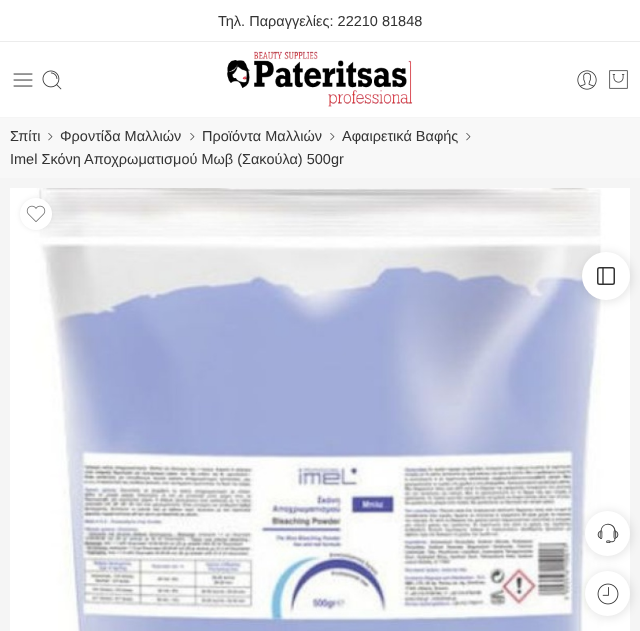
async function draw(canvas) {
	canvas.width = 640;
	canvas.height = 631;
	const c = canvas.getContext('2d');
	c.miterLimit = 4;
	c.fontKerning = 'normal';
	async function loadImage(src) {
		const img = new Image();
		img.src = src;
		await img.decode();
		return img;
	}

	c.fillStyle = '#fff';
	c.fillRect(0, 0, 640, 631);
	c.fillStyle = '#ececec';
	c.fillRect(0, 41, 640, 1);
	c.font = '14.5px Liberation Sans';
	c.fillStyle = '#333';
	c.fillText('Τηλ. Παραγγελίες: 22210 81848', 218, 26);
	c.drawImage(await loadImage('img1.png'), 13, 73, 20, 14);
	c.drawImage(await loadImage('img2.png'), 42, 70, 20, 20);
	c.drawImage(await loadImage('img3.png'), 227, 51, 186, 56);
	c.drawImage(await loadImage('img4.png'), 577, 70, 20, 20);
	c.drawImage(await loadImage('img5.png'), 609, 70, 19, 19);
	c.fillStyle = '#f5f5f5';
	c.fillRect(0, 117, 640, 514);
	c.fillStyle = '#f8f8f8';
	c.fillRect(0, 118, 640, 60);
	c.fillStyle = '#333';
	c.fillText('Σπίτι', 10, 141);
	c.drawImage(await loadImage('img6.png'), 48, 133, 5, 8);
	c.fillText('Φροντίδα Μαλλιών', 60, 141);
	c.drawImage(await loadImage('img6.png'), 190, 133, 5, 8);
	c.fillText('Προϊόντα Μαλλιών', 202, 141);
	c.drawImage(await loadImage('img6.png'), 330, 133, 5, 8);
	c.fillText('Αφαιρετικά Βαφής', 342, 141);
	c.drawImage(await loadImage('img6.png'), 466, 133, 5, 8);
	c.fillText('Imel Σκόνη Αποχρωματισμού Μωβ (Σακούλα) 500gr', 10, 164);
	c.drawImage(await loadImage('img7.png'), 10, 188, 620, 443);
	c.fillStyle = '#00000014';
	c.filter = 'blur(2.5px)';
	c.beginPath();
	c.roundRect(20, 198, 32, 32, 16);
	c.fill();
	c.filter = 'none';
	c.fillStyle = '#fff';
	c.beginPath();
	c.arc(36, 214, 16, 0, 2 * Math.PI);
	c.fill();
	c.drawImage(await loadImage('img8.png'), 26, 205, 20, 17);
	c.fillStyle = '#0000001a';
	c.filter = 'blur(5px)';
	c.beginPath();
	c.roundRect(582, 252, 50, 50, 25);
	c.fill();
	c.filter = 'none';
	c.fillStyle = '#fff';
	c.beginPath();
	c.arc(606, 276, 24, 0, 2 * Math.PI);
	c.fill();
	c.beginPath();
	c.roundRect(597.75, 267.75, 16.5, 16.5, 1.75);
	c.strokeStyle = '#333';
	c.lineWidth = 1.5;
	c.stroke();
	c.beginPath();
	c.moveTo(603, 268);
	c.lineTo(603, 284);
	c.lineWidth = 1.4;
	c.lineCap = 'round';
	c.lineJoin = 'round';
	c.stroke();
	c.fillStyle = '#0000001a';
	c.filter = 'blur(5px)';
	c.beginPath();
	c.roundRect(585, 511, 47, 47, 23.5);
	c.fill();
	c.filter = 'none';
	c.fillStyle = '#fff';
	c.beginPath();
	c.arc(607.5, 533.5, 22.5, 0, 2 * Math.PI);
	c.fill();
	c.drawImage(await loadImage('img9.png'), 597, 523, 22, 20);
	c.fillStyle = '#0000001a';
	c.filter = 'blur(5px)';
	c.beginPath();
	c.roundRect(585, 571, 47, 47, 23.5);
	c.fill();
	c.filter = 'none';
	c.fillStyle = '#fff';
	c.beginPath();
	c.arc(607.5, 593.5, 22.5, 0, 2 * Math.PI);
	c.fill();
	c.drawImage(await loadImage('img10.png'), 597, 583, 22, 22);
}

draw(document.querySelector('canvas'));
